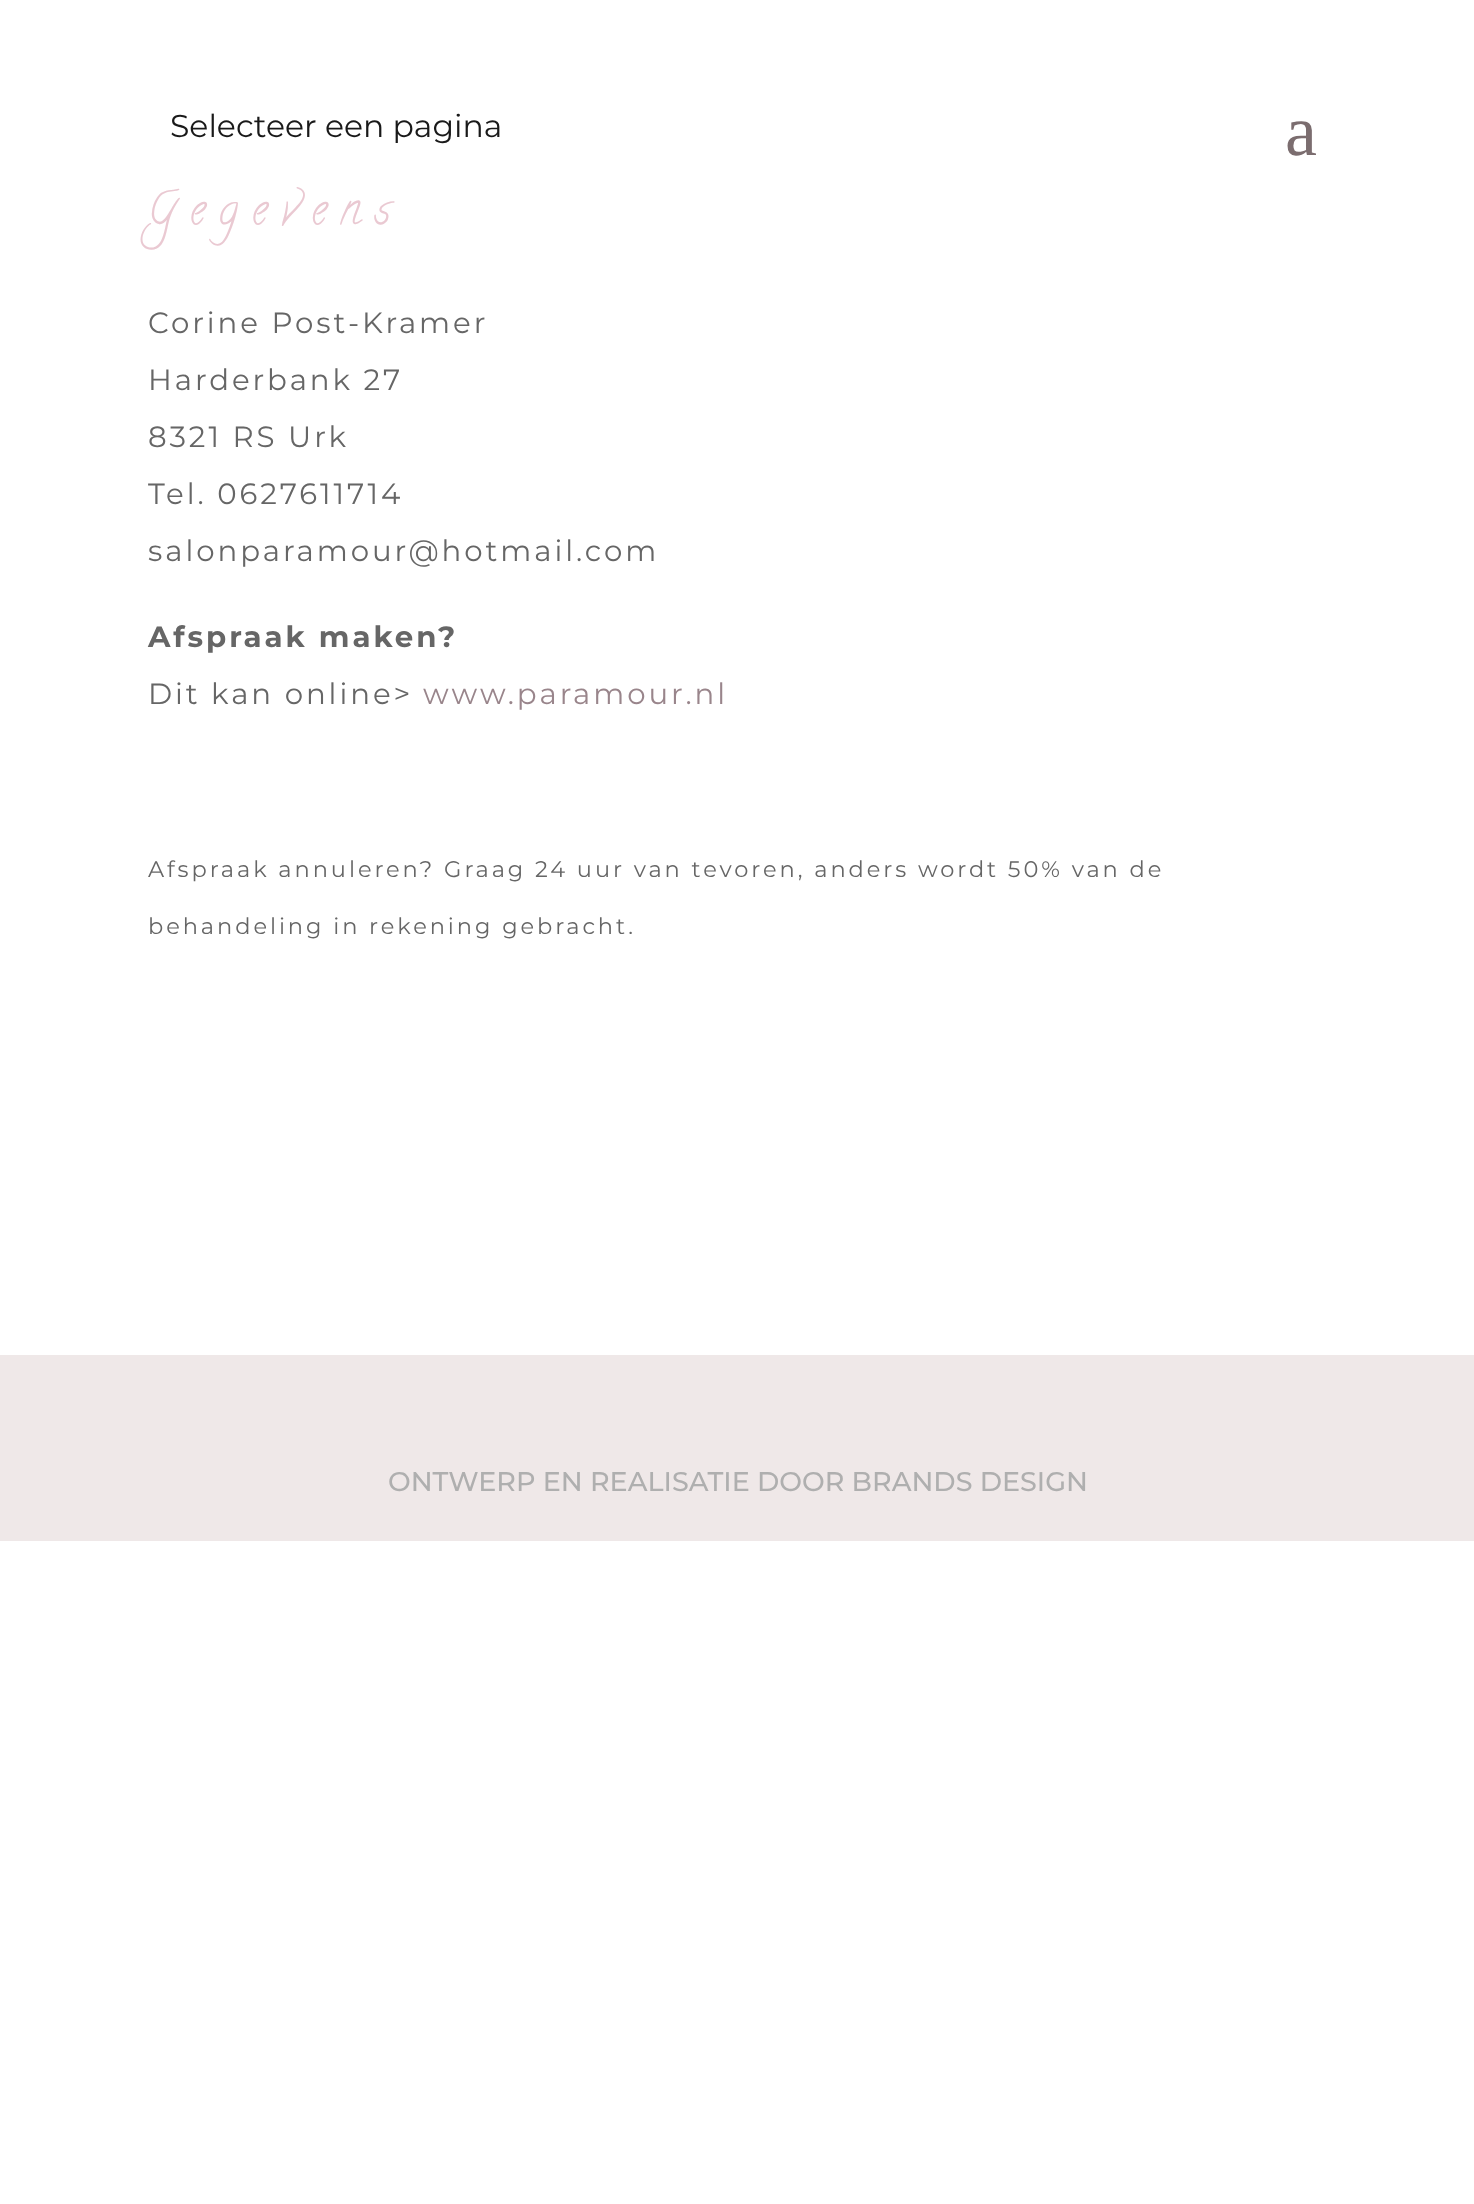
async function draw(canvas) {
	canvas.width = 1474;
	canvas.height = 2204;
	const c = canvas.getContext('2d');
	c.miterLimit = 4;
	c.fontKerning = 'normal';

	c.fillStyle = '#fff';
	c.fillRect(0, 0, 1474, 2204);
	c.font = '100 31.5px "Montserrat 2"';
	c.fillStyle = '#191919';
	c.fillText('Selecteer een pagina', 170, 137);
	c.font = '72px Liberation Serif';
	c.fillStyle = '#7b6d6f';
	c.fillText('a', 1285, 155);
	c.letterSpacing = '13.5px';
	c.font = '45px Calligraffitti';
	c.fillStyle = '#eac9d2';
	c.fillText('Gegevens', 148, 223);
	c.letterSpacing = '2.93px';
	c.font = '100 29.25px "Montserrat 2"';
	c.fillStyle = '#666';
	for (const [text, x, y] of [
		['Corine Post-Kramer', 148, 333],
		['Harderbank 27', 148, 390],
		['8321 RS Urk', 148, 447],
		['Tel. 0627611714', 148, 504],
		['salonparamour@hotmail.com', 148, 561],
	]) {
		c.fillText(text, x, y);
	}
	c.font = '100 29.25px "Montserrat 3"';
	c.fillText('Afspraak maken?', 148, 647);
	c.font = '100 29.25px "Montserrat 2"';
	c.fillText('Dit kan online>', 148, 704);
	c.fillStyle = '#99858b';
	c.fillText('www.paramour.nl', 423, 704);
	c.font = '100 22.5px "Montserrat 2"';
	c.fillStyle = '#666';
	c.fillText('Afspraak annuleren? Graag 24 uur van tevoren, anders wordt 50% van de', 148, 877);
	c.fillText('behandeling in rekening gebracht.', 148, 934);
	c.fillStyle = '#efe8e8';
	c.fillRect(0, 1355, 1474, 186);
	c.letterSpacing = '0px';
	c.font = '100 27px Montserrat';
	c.fillStyle = '#afafaf';
	c.fillText('ONTWERP EN REALISATIE DOOR BRANDS DESIGN', 388, 1491);
}

draw(document.querySelector('canvas'));
